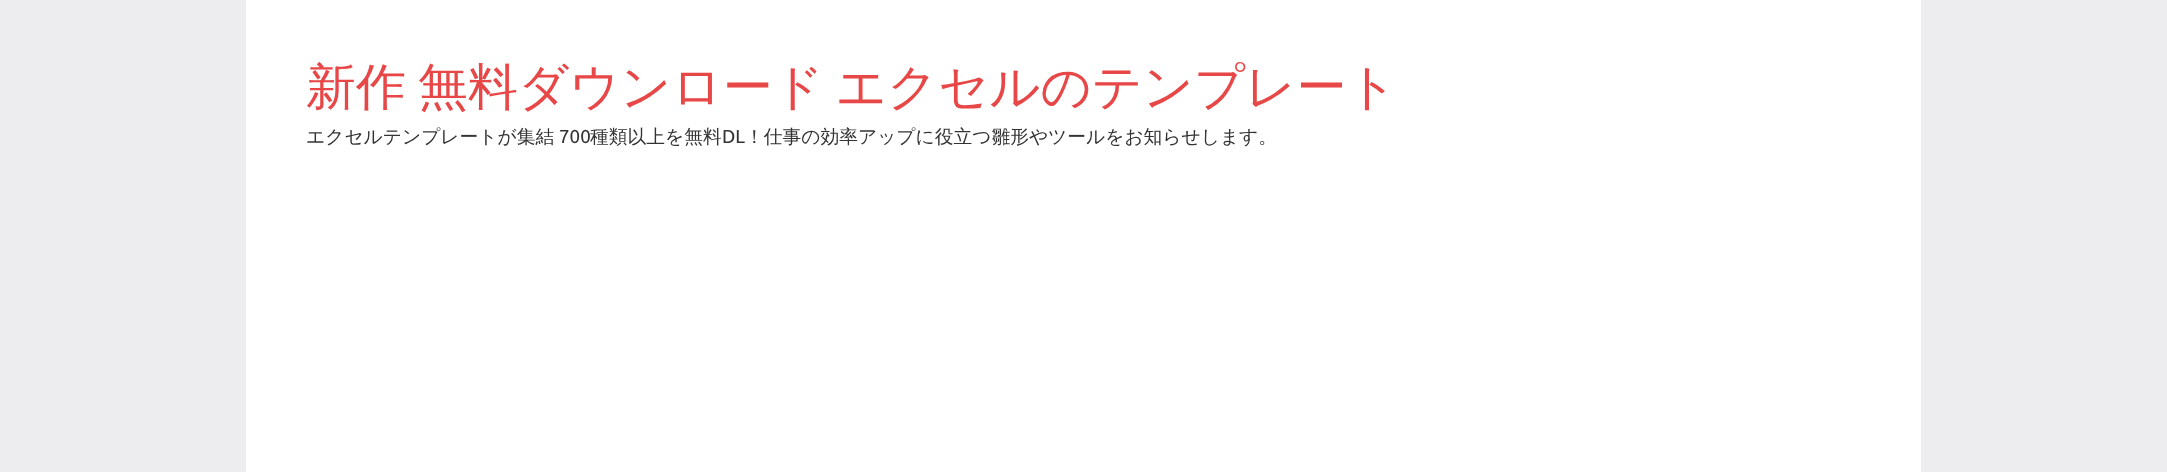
async function draw(canvas) {
	canvas.width = 2167;
	canvas.height = 472;
	const c = canvas.getContext('2d');
	c.miterLimit = 4;
	c.fontKerning = 'normal';

	c.fillStyle = '#ededef';
	c.fillRect(0, 0, 2167, 472);
	c.fillStyle = '#fff';
	c.fillRect(246, 0, 1675, 472);
	c.wordSpacing = '-3px';
	c.font = '500 50px WenQuanYi Zen Hei';
	c.fillStyle = '#e84747';
	c.fillText('新作 無料ダウンロード エクセルのテンプレート', 306, 104);
	c.wordSpacing = '0px';
	c.font = '500 18.75px WenQuanYi Zen Hei';
	c.fillStyle = '#333';
	c.fillText('エクセルテンプレートが集結', 306, 143);
	c.font = '18.75px Ubuntu';
	c.fillText('700', 559, 143);
	c.font = '500 18.75px WenQuanYi Zen Hei';
	c.fillText('種類以上を無料', 590, 143);
	c.font = '18.75px Ubuntu';
	c.fillText('DL', 722, 143);
	c.font = '500 18.75px WenQuanYi Zen Hei';
	c.fillText('！仕事の効率アップに役立つ雛形やツールをお知らせします。', 745, 143);
}

draw(document.querySelector('canvas'));
